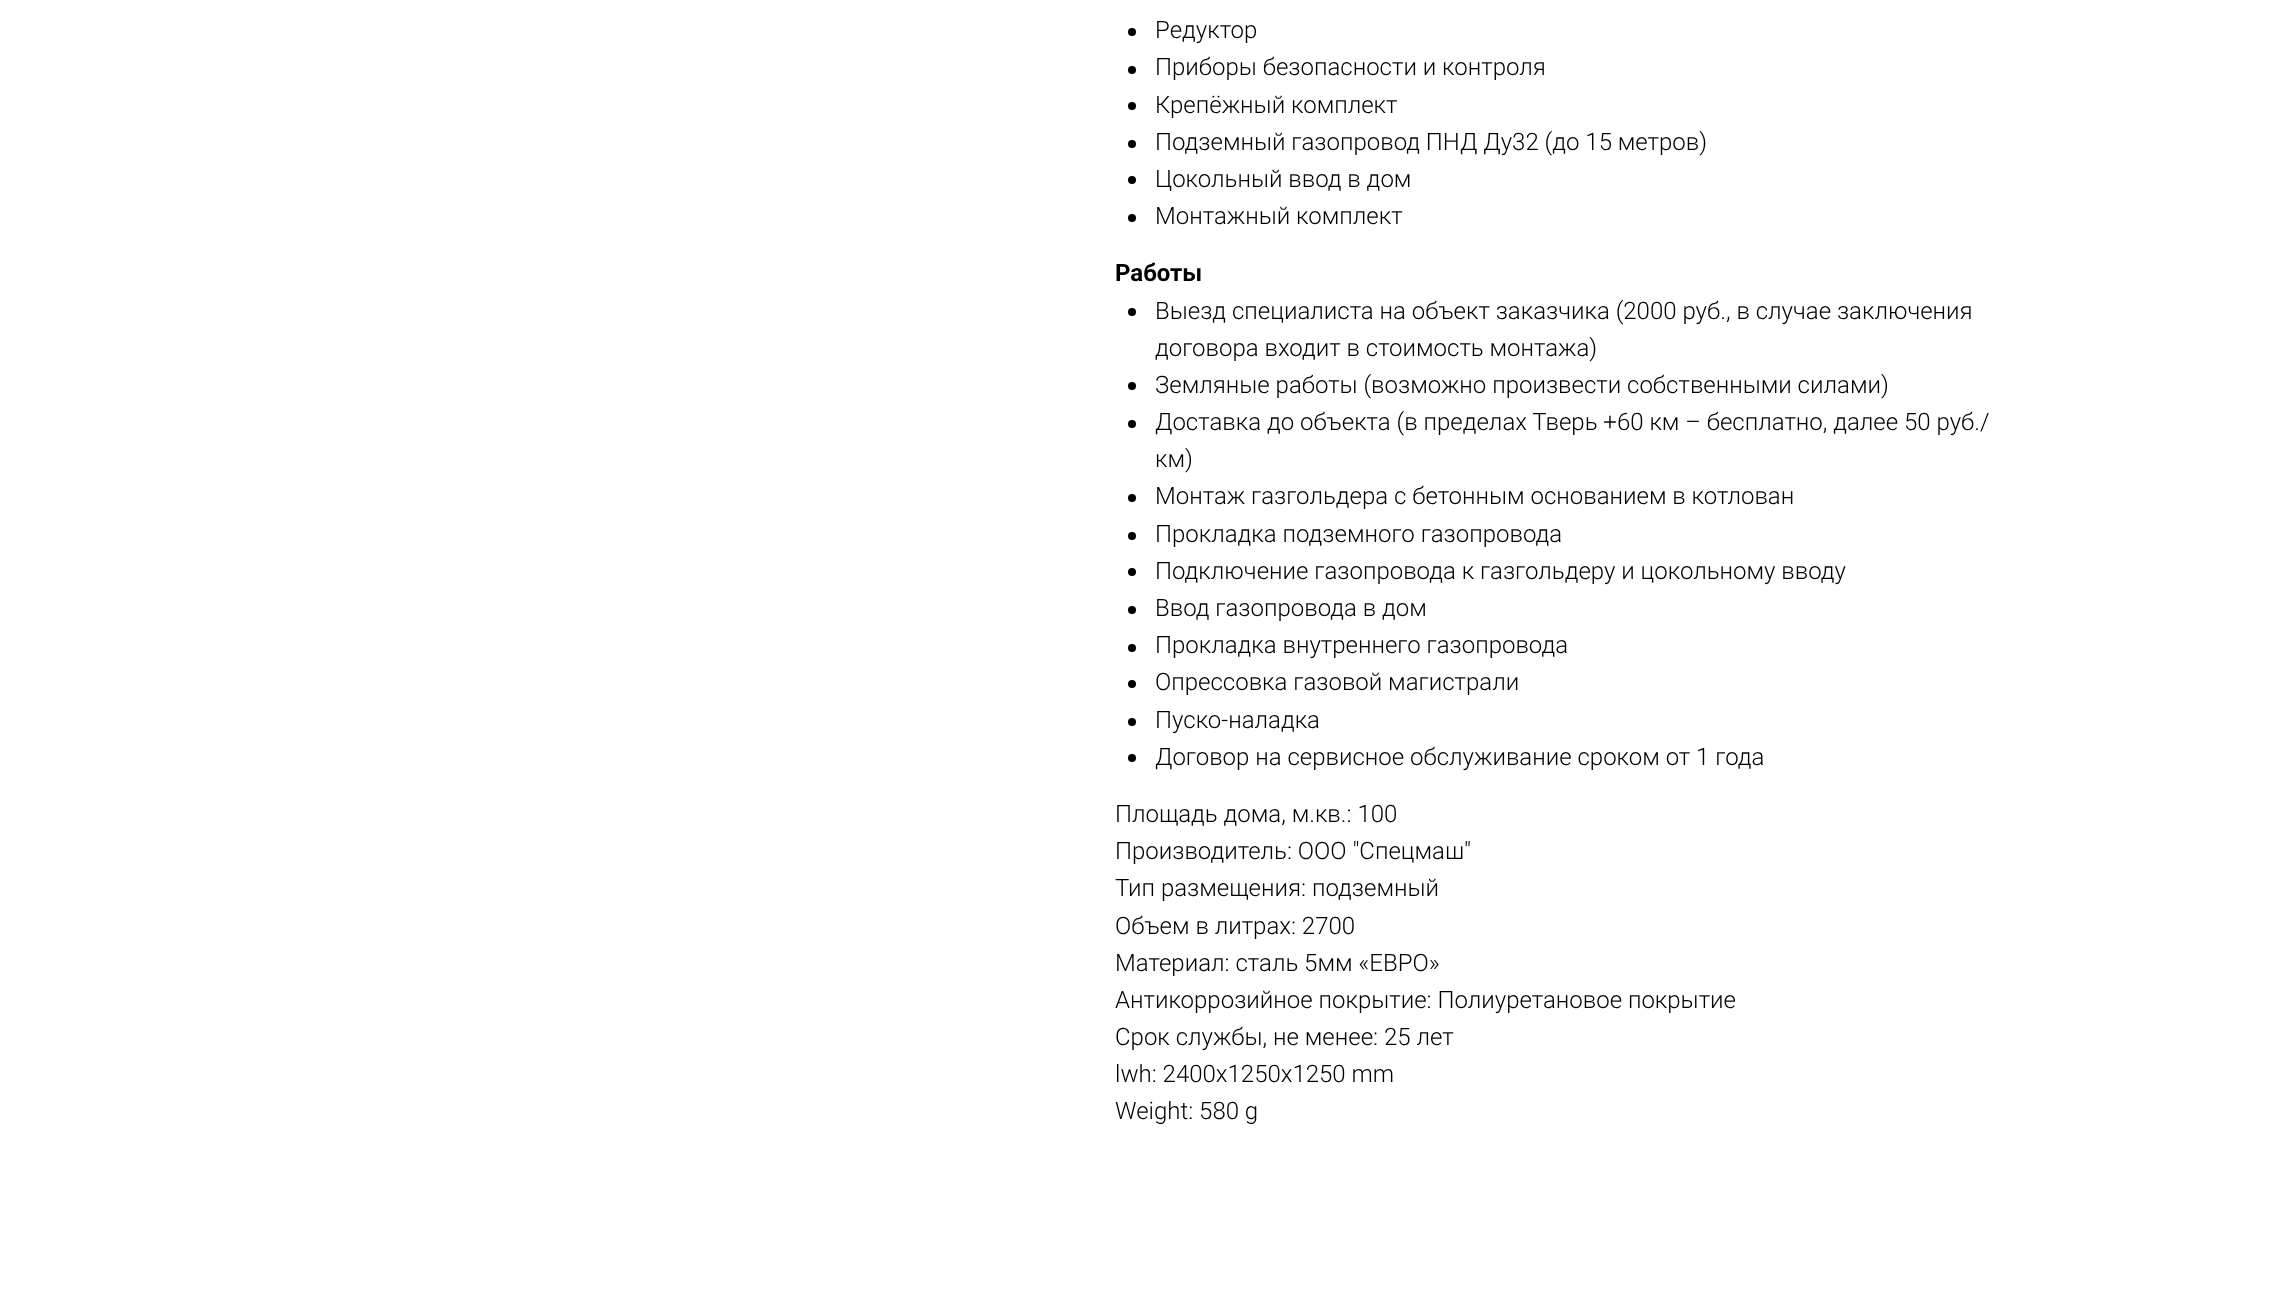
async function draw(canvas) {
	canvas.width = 2270;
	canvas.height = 1307;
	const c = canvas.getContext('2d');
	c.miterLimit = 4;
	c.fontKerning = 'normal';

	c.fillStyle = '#fff';
	c.fillRect(0, 0, 2270, 1307);
	c.fillStyle = '#000';
	c.beginPath();
	c.arc(1132, 32, 4, 0, 2 * Math.PI);
	c.fill();
	c.font = '300 24px Roboto';
	c.fillText('Редуктор', 1155, 38);
	c.beginPath();
	c.arc(1132, 70, 4, 0, 2 * Math.PI);
	c.fill();
	c.fillText('Приборы безопасности и контроля', 1155, 75);
	c.beginPath();
	c.arc(1132, 106, 4, 0, 2 * Math.PI);
	c.fill();
	c.fillText('Крепёжный комплект', 1155, 113);
	c.beginPath();
	c.arc(1132, 144, 4, 0, 2 * Math.PI);
	c.fill();
	c.fillText('Подземный газопровод ПНД Ду32 (до 15 метров)', 1155, 150);
	c.beginPath();
	c.arc(1132, 180, 4, 0, 2 * Math.PI);
	c.fill();
	c.fillText('Цокольный ввод в дом', 1155, 187);
	c.beginPath();
	c.arc(1132, 218, 4, 0, 2 * Math.PI);
	c.fill();
	c.fillText('Монтажный комплект', 1155, 224);
	c.font = 'bold 24px Roboto';
	c.fillText('Работы', 1115, 281);
	c.beginPath();
	c.arc(1132, 312, 4, 0, 2 * Math.PI);
	c.fill();
	c.font = '300 24px Roboto';
	c.fillText('Выезд специалиста на объект заказчика (2000 руб., в случае заключения', 1155, 319);
	c.fillText('договора входит в стоимость монтажа)', 1155, 356);
	c.beginPath();
	c.arc(1132, 386, 4, 0, 2 * Math.PI);
	c.fill();
	c.fillText('Земляные работы (возможно произвести собственными силами)', 1155, 393);
	c.beginPath();
	c.arc(1132, 424, 4, 0, 2 * Math.PI);
	c.fill();
	c.fillText('Доставка до объекта (в пределах Тверь +60 км – бесплатно, далее 50 руб./', 1155, 430);
	c.fillText('км)', 1155, 467);
	c.beginPath();
	c.arc(1132, 498, 4, 0, 2 * Math.PI);
	c.fill();
	c.fillText('Монтаж газгольдера с бетонным основанием в котлован', 1155, 504);
	c.beginPath();
	c.arc(1132, 536, 4, 0, 2 * Math.PI);
	c.fill();
	c.fillText('Прокладка подземного газопровода', 1155, 542);
	c.beginPath();
	c.arc(1132, 572, 4, 0, 2 * Math.PI);
	c.fill();
	c.fillText('Подключение газопровода к газгольдеру и цокольному вводу', 1155, 579);
	c.beginPath();
	c.arc(1132, 610, 4, 0, 2 * Math.PI);
	c.fill();
	c.fillText('Ввод газопровода в дом', 1155, 616);
	c.beginPath();
	c.arc(1132, 648, 4, 0, 2 * Math.PI);
	c.fill();
	c.fillText('Прокладка внутреннего газопровода', 1155, 653);
	c.beginPath();
	c.arc(1132, 684, 4, 0, 2 * Math.PI);
	c.fill();
	c.fillText('Опрессовка газовой магистрали', 1155, 690);
	c.beginPath();
	c.arc(1132, 722, 4, 0, 2 * Math.PI);
	c.fill();
	c.fillText('Пуско-наладка', 1155, 728);
	c.beginPath();
	c.arc(1132, 758, 4, 0, 2 * Math.PI);
	c.fill();
	for (const [text, x, y] of [
		['Договор на сервисное обслуживание сроком от 1 года', 1155, 765],
		['Площадь дома, м.кв.: 100', 1115, 822],
		['Производитель: ООО "Спецмаш"', 1115, 859],
		['Тип размещения: подземный', 1115, 896],
		['Объем в литрах: 2700', 1115, 934],
		['Материал: сталь 5мм «ЕВРО»', 1115, 971],
		['Антикоррозийное покрытие: Полиуретановое покрытие', 1115, 1008],
		['Срок службы, не менее: 25 лет', 1115, 1045],
		['lwh: 2400x1250x1250 mm', 1115, 1082],
		['Weight: 580 g', 1115, 1119],
	]) {
		c.fillText(text, x, y);
	}
}

draw(document.querySelector('canvas'));
